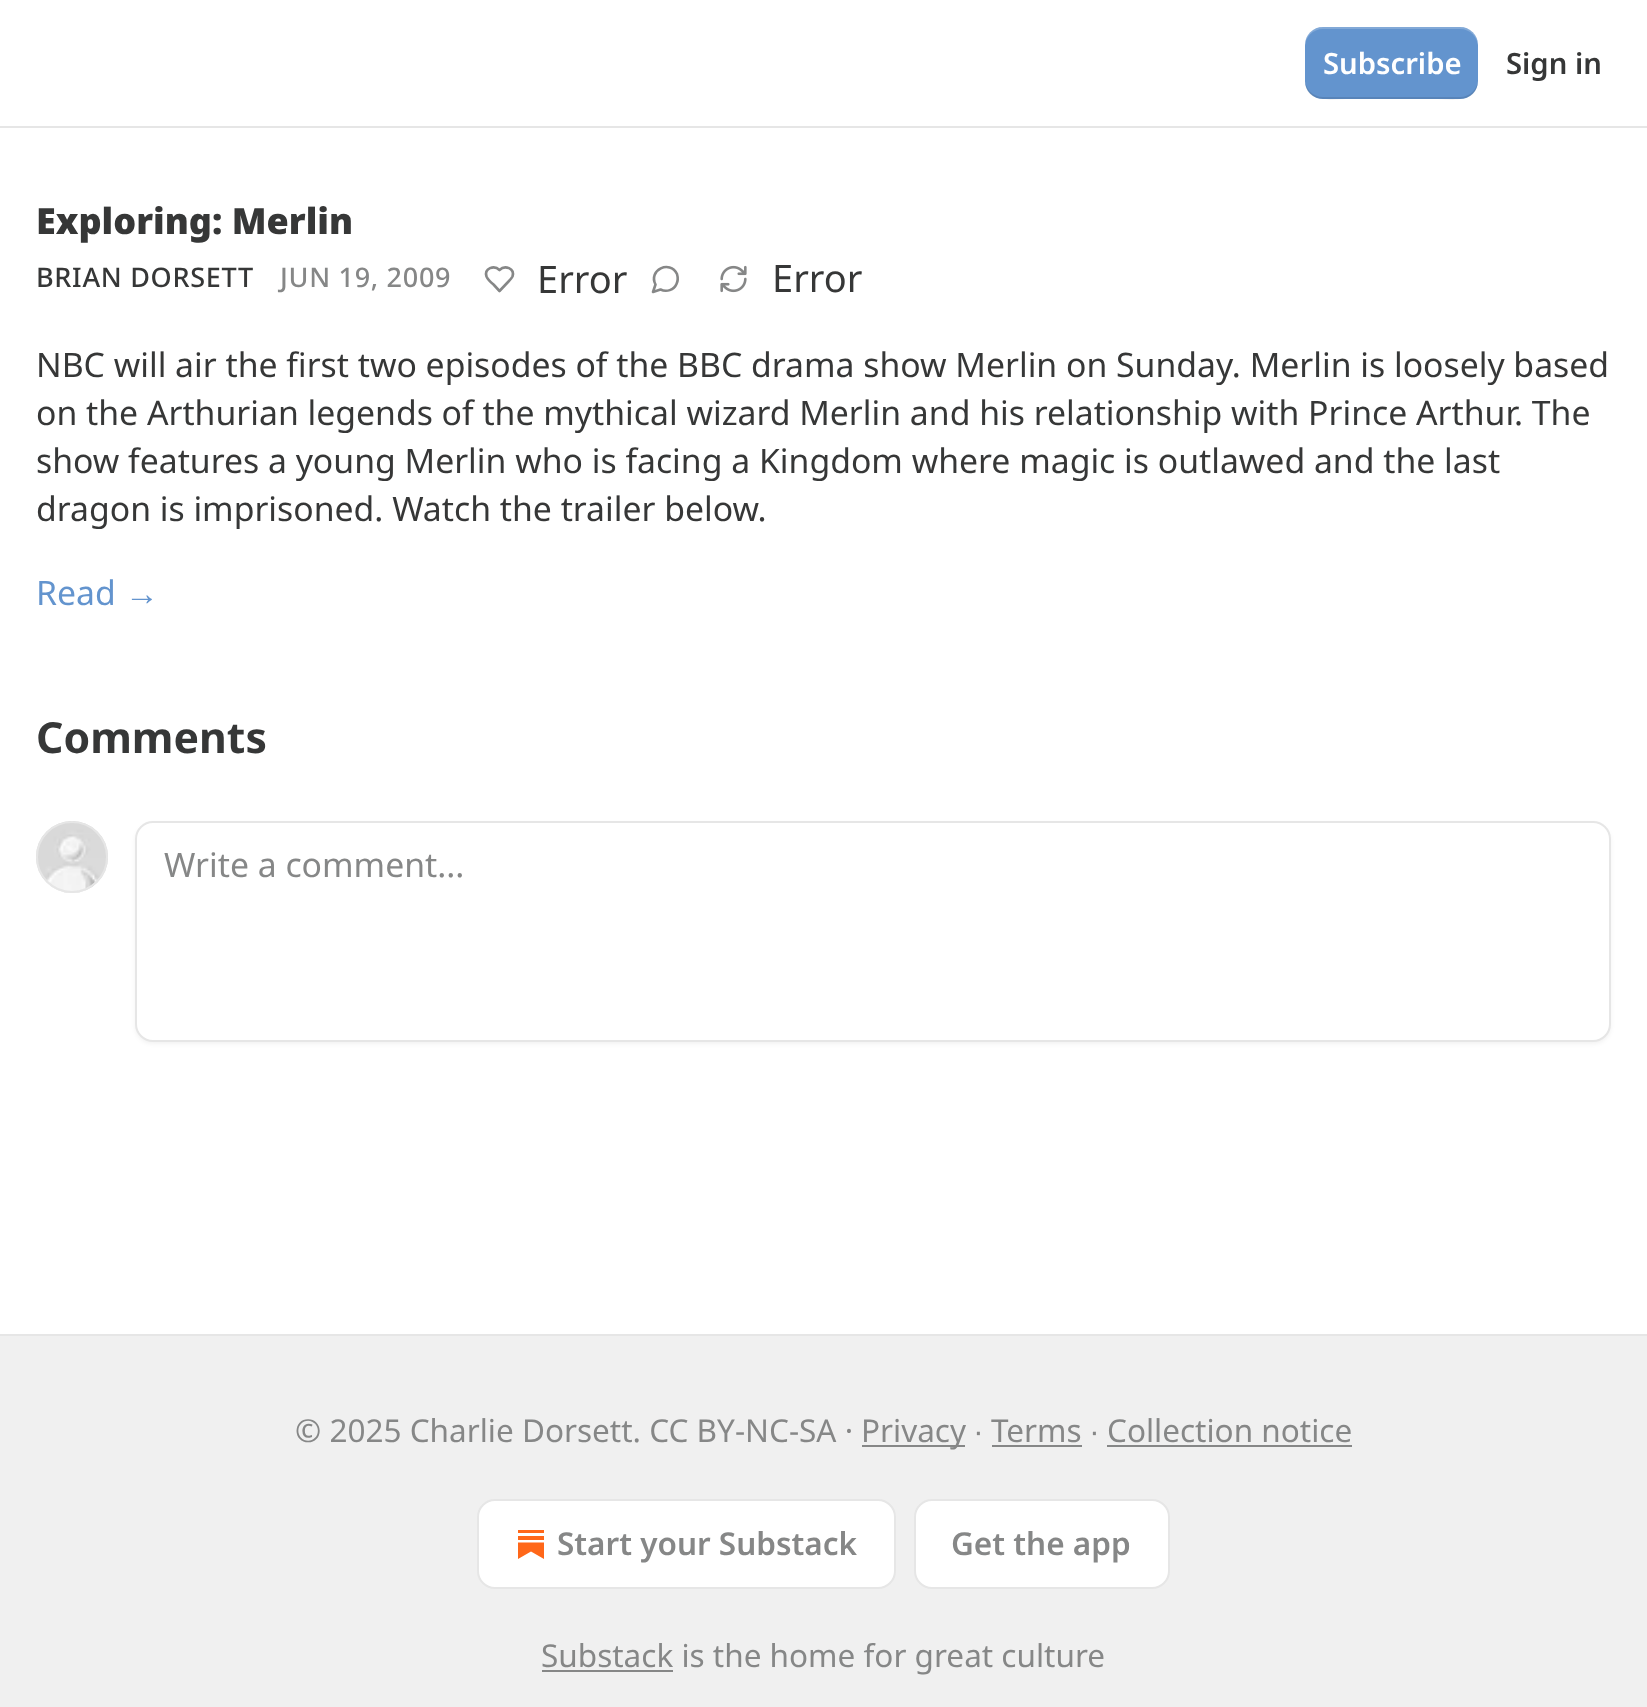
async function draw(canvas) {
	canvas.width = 1647;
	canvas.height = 1707;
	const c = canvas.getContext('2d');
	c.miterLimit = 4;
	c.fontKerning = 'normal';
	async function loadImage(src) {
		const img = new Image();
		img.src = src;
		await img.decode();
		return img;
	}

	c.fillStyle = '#fff';
	c.fillRect(0, 0, 1647, 1707);
	c.fillStyle = '#e6e6e6';
	c.fillRect(0, 126, 1647, 2);
	c.fillStyle = '#6394ce';
	c.beginPath();
	c.roundRect(1305, 27, 173, 72, 18);
	c.fill();
	c.fillStyle = '#0000001a';
	c.beginPath();
	c.moveTo(1305, 79);
	c.bezierCurveTo(1305, 104, 1328, 99, 1346, 99);
	c.lineTo(1437, 99);
	c.bezierCurveTo(1455, 99, 1478, 104, 1478, 79);
	c.bezierCurveTo(1478, 89, 1470, 97, 1460, 97);
	c.lineTo(1323, 97);
	c.bezierCurveTo(1313, 97, 1305, 89, 1305, 79);
	c.closePath();
	c.fill();
	c.fillStyle = '#ffffff33';
	c.beginPath();
	c.moveTo(1323, 29);
	c.lineTo(1460, 29);
	c.bezierCurveTo(1470, 29, 1478, 37, 1478, 47);
	c.bezierCurveTo(1478, 22, 1455, 27, 1437, 27);
	c.lineTo(1346, 27);
	c.bezierCurveTo(1328, 27, 1305, 22, 1305, 47);
	c.bezierCurveTo(1305, 37, 1313, 29, 1323, 29);
	c.closePath();
	c.fill();
	c.font = '600 29.25px Noto Sans';
	c.fillStyle = '#fff';
	c.fillText('Subscribe', 1323, 74);
	c.fillStyle = '#363737';
	c.fillText('Sign in', 1506, 74);
	c.font = '900 36px Noto Sans';
	c.fillText('Exploring: Merlin', 36, 234);
	c.letterSpacing = '0.7px';
	c.font = '500 27px Noto Sans';
	c.fillText('BRIAN DORSETT', 36, 287);
	c.fillStyle = '#868787';
	c.fillText('JUN 19, 2009', 280, 287);
	c.beginPath();
	c.moveTo(508.5, 281.5);
	c.bezierCurveTo(510, 280, 511.5, 278.5, 512.5, 276.5);
	c.bezierCurveTo(515, 268.5, 505, 264.5, 499.5, 270);
	c.bezierCurveTo(494, 264.5, 484, 268.5, 486.5, 276.5);
	c.bezierCurveTo(488, 280, 491, 282.5, 493.5, 284.5);
	c.lineTo(499.5, 291);
	c.closePath();
	c.strokeStyle = '#868787';
	c.lineWidth = 2.6;
	c.lineCap = 'round';
	c.lineJoin = 'round';
	c.stroke();
	c.letterSpacing = '0px';
	c.font = '38px Noto Sans';
	c.fillStyle = '#363737';
	c.fillText('Error', 537, 293);
	c.beginPath();
	c.moveTo(660.5, 289.5);
	c.bezierCurveTo(666.5, 292.5, 674, 290, 676.5, 284);
	c.bezierCurveTo(678, 281, 678, 277.5, 677, 274);
	c.bezierCurveTo(670, 259.5, 648, 270, 655.5, 284.5);
	c.lineTo(653, 292);
	c.closePath();
	c.stroke();
	c.drawImage(await loadImage('img1.png'), 720, 265, 27, 28);
	c.fillText('Error', 772, 292);
	c.font = '33.75px Noto Sans';
	for (const [text, x, y] of [
		['NBC will air the first two episodes of the BBC drama show Merlin on Sunday. Merlin is loosely based', 36, 377],
		['on the Arthurian legends of the mythical wizard Merlin and his relationship with Prince Arthur. The', 36, 425],
		['show features a young Merlin who is facing a Kingdom where magic is outlawed and the last', 36, 473],
		['dragon is imprisoned. Watch the trailer below.', 36, 521],
	]) {
		c.fillText(text, x, y);
	}
	c.fillStyle = '#6394ce';
	c.fillText('Read', 36, 605);
	c.font = '33.75px Liberation Sans';
	c.fillText('→', 125, 605);
	c.font = 'bold 42.75px Noto Sans';
	c.fillStyle = '#363737';
	c.fillText('Comments', 36, 753);
	c.beginPath();
	c.arc(72, 857, 35, 0, 2 * Math.PI);
	c.strokeStyle = '#e6e6e6';
	c.lineWidth = 2;
	c.stroke();
	c.drawImage(await loadImage('img2.png'), 36, 821, 72, 71);
	c.beginPath();
	c.arc(72, 857, 35, 0, 2 * Math.PI);
	c.stroke();
	c.fillStyle = '#0000000d';
	c.filter = 'blur(2px)';
	c.beginPath();
	c.roundRect(135, 824, 1476, 220, 18);
	c.fill();
	c.filter = 'none';
	c.fillStyle = '#fff';
	c.beginPath();
	c.roundRect(136, 822, 1474, 219, 17);
	c.fill();
	c.lineJoin = 'miter';
	c.stroke();
	c.font = '33.75px Noto Sans';
	c.fillStyle = '#868787';
	c.fillText('Write a comment...', 164, 877);
	c.fillStyle = '#f0f0f0';
	c.fillRect(0, 1336, 1647, 371);
	c.fillStyle = '#e6e6e6';
	c.fillRect(0, 1334, 1647, 2);
	c.font = '31.5px Noto Sans';
	c.fillStyle = '#868787';
	c.fillText('© 2025 Charlie Dorsett. CC BY-NC-SA ·', 295, 1442);
	c.fillRect(862, 1445, 103, 2);
	c.fillText('Privacy', 861, 1442);
	c.font = '31.5px Liberation Sans';
	c.fillText('∙', 974, 1442);
	c.font = '31.5px Noto Sans';
	c.fillText('Terms', 991, 1442);
	c.fillRect(992, 1445, 90, 2);
	c.font = '31.5px Liberation Sans';
	c.fillText('∙', 1090, 1442);
	c.font = '31.5px Noto Sans';
	c.fillText('Collection notice', 1107, 1442);
	c.fillRect(1107, 1445, 245, 2);
	c.fillStyle = '#fff';
	c.beginPath();
	c.roundRect(478, 1500, 417, 88, 17);
	c.fill();
	c.stroke();
	c.fillStyle = '#ff6719';
	c.fillRect(518, 1536, 26, 4);
	c.beginPath();
	c.moveTo(518, 1542.5);
	c.lineTo(518, 1559);
	c.lineTo(531, 1551.5);
	c.lineTo(544, 1559);
	c.lineTo(544, 1542.5);
	c.closePath();
	c.fill();
	c.fillRect(518, 1530, 26, 3);
	c.font = '600 31.5px Noto Sans';
	c.fillStyle = '#868787';
	c.fillText('Start your Substack', 557, 1555);
	c.fillStyle = '#fff';
	c.beginPath();
	c.roundRect(915, 1500, 254, 88, 17);
	c.fill();
	c.stroke();
	c.fillStyle = '#868787';
	c.fillText('Get the app', 951, 1555);
	c.fillRect(542, 1670, 131, 2);
	c.font = '31.5px Noto Sans';
	c.fillText('Substack is the home for great culture', 541, 1667);
}

draw(document.querySelector('canvas'));
